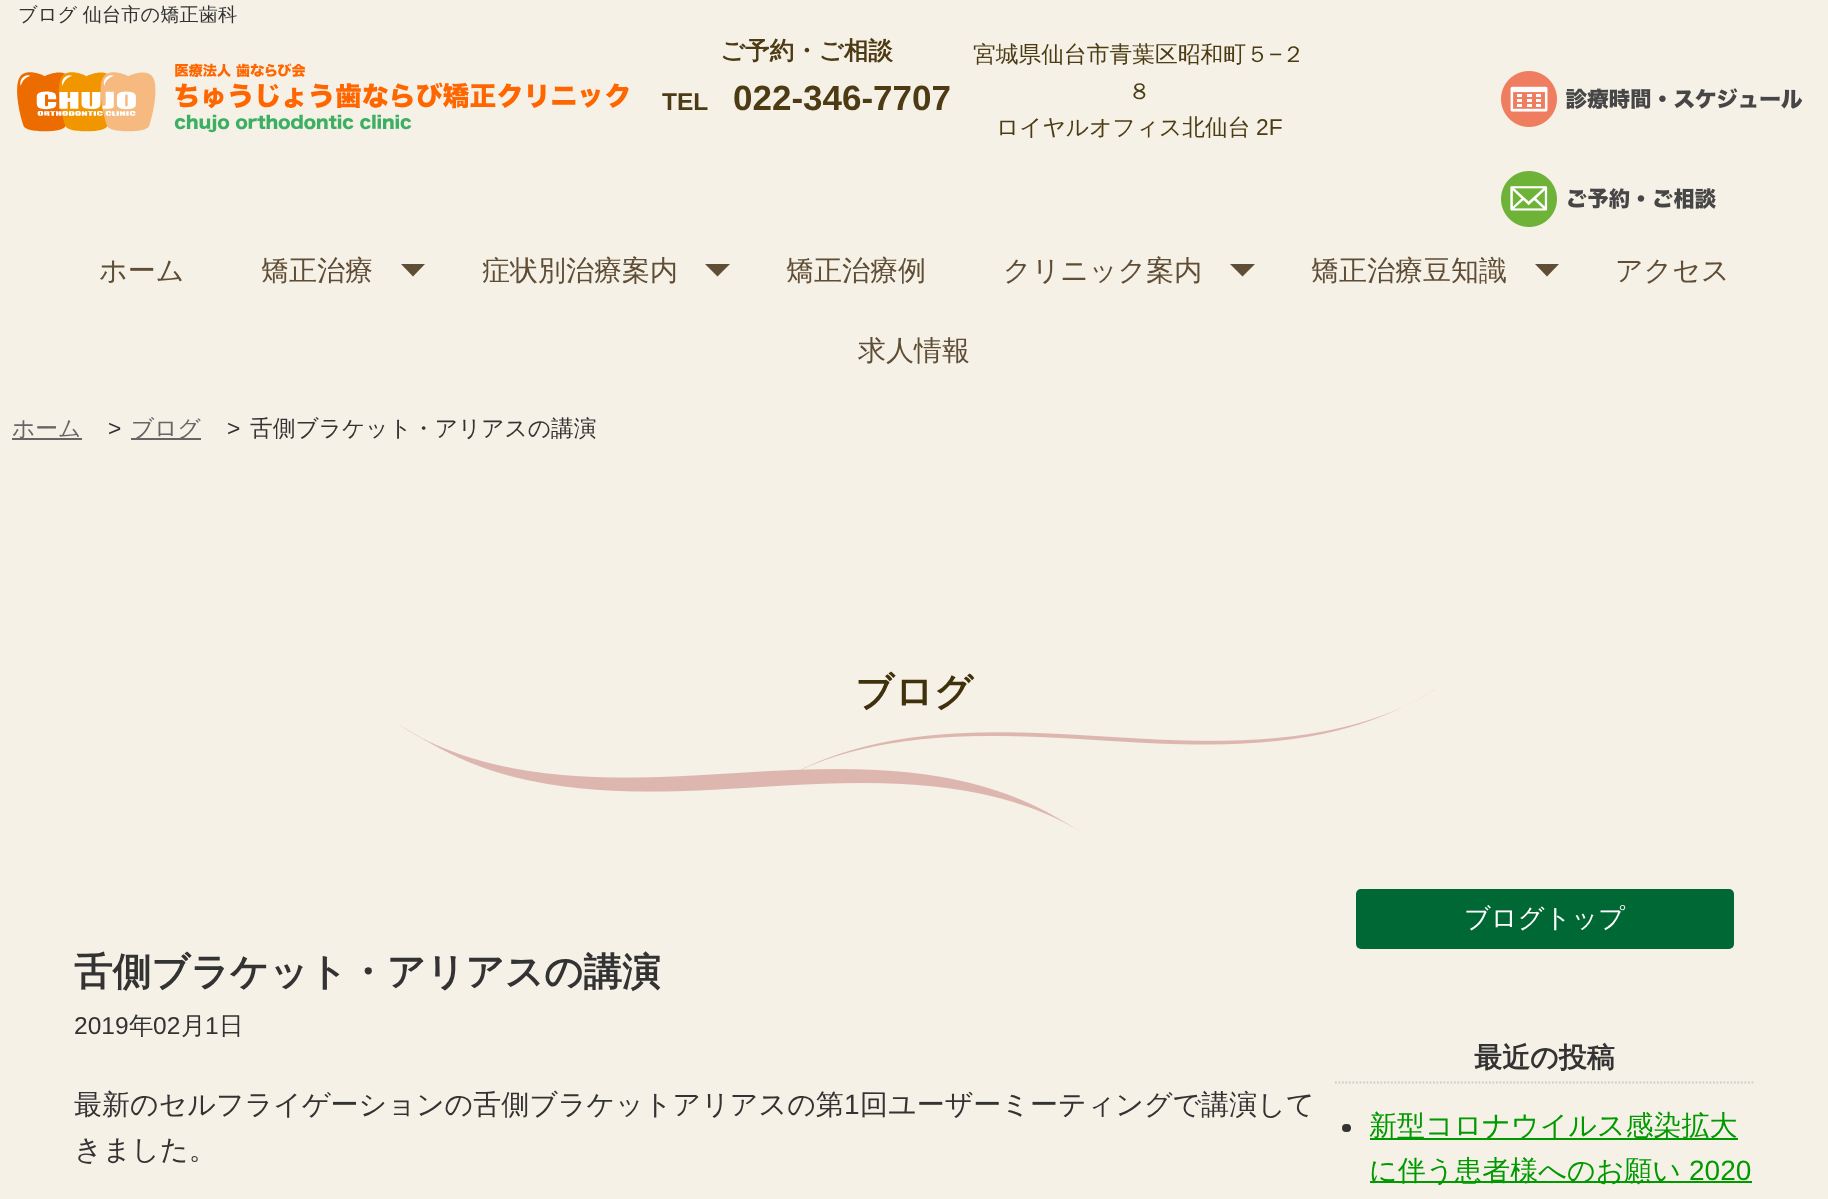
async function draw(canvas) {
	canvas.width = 1828;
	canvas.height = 1199;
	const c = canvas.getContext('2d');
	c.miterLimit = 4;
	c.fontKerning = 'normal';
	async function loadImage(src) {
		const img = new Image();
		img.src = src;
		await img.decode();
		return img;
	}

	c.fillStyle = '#f6f1e7';
	c.fillRect(0, 0, 1828, 1199);
	c.font = '500 19.25px WenQuanYi Zen Hei';
	c.fillStyle = '#333';
	c.fillText('ブログ 仙台市の矯正歯科', 18, 21);
	c.drawImage(await loadImage('img1.png'), 17, 63, 612, 70);
	c.font = 'bold 24.5px WenQuanYi Zen Hei';
	c.fillStyle = '#4c3b13';
	c.fillText('ご予約・ご相談', 720, 59);
	c.font = 'bold 24.5px Liberation Sans';
	c.fillText('TEL', 662, 110);
	c.font = 'bold 35px Liberation Sans';
	c.fillText('022-346-7707', 733, 110);
	c.font = '500 22.75px WenQuanYi Zen Hei';
	c.fillText('宮城県仙台市青葉区昭和町５', 973, 62);
	c.font = '22.75px Liberation Sans';
	c.fillText('−', 1269, 62);
	c.font = '500 22.75px WenQuanYi Zen Hei';
	for (const [text, x, y] of [
		['２', 1282, 62],
		['８', 1128, 99],
		['ロイヤルオフィス北仙台', 996, 135],
	]) {
		c.fillText(text, x, y);
	}
	c.font = '22.75px Liberation Sans';
	c.fillText('2F', 1256, 135);
	c.drawImage(await loadImage('img2.png'), 1501, 71, 302, 56);
	c.drawImage(await loadImage('img3.png'), 1501, 171, 215, 56);
	c.font = '500 28px WenQuanYi Zen Hei';
	c.fillStyle = '#5f4d36';
	c.fillText('ホーム', 99, 280);
	c.fillText('矯正治療', 261, 280);
	c.beginPath();
	c.moveTo(401, 264);
	c.lineTo(425, 264);
	c.lineTo(413, 276.5);
	c.closePath();
	c.fill();
	c.fillText('症状別治療案内', 482, 280);
	c.beginPath();
	c.moveTo(705, 264);
	c.lineTo(730, 264);
	c.lineTo(717.5, 276.5);
	c.closePath();
	c.fill();
	c.fillText('矯正治療例', 786, 280);
	c.fillText('クリニック案内', 1003, 280);
	c.beginPath();
	c.moveTo(1230, 264);
	c.lineTo(1255, 264);
	c.lineTo(1242.5, 276.5);
	c.closePath();
	c.fill();
	c.fillText('矯正治療豆知識', 1311, 280);
	c.beginPath();
	c.moveTo(1535, 264);
	c.lineTo(1559, 264);
	c.lineTo(1547, 276.5);
	c.closePath();
	c.fill();
	c.fillText('アクセス', 1615, 280);
	c.fillText('求人情報', 858, 360);
	c.fillStyle = '#666';
	c.fillRect(12, 438, 70, 2);
	c.font = '500 22.75px WenQuanYi Zen Hei';
	c.fillText('ホーム', 12, 436);
	c.font = '22.75px Liberation Sans';
	c.fillStyle = '#333';
	c.fillText('>', 108, 436);
	c.fillStyle = '#666';
	c.fillRect(131, 438, 70, 2);
	c.font = '500 22.75px WenQuanYi Zen Hei';
	c.fillText('ブログ', 131, 436);
	c.font = '22.75px Liberation Sans';
	c.fillStyle = '#333';
	c.fillText('>', 227, 436);
	c.font = '500 22.75px WenQuanYi Zen Hei';
	c.fillText('舌側ブラケット・アリアスの講演', 250, 436);
	c.drawImage(await loadImage('img4.png'), 398, 689, 1038, 142);
	c.font = 'bold 38.5px WenQuanYi Zen Hei';
	c.fillStyle = '#40310d';
	c.fillText('ブログ', 855, 705);
	c.fillStyle = '#333';
	c.fillText('舌側ブラケット・アリアスの講演', 74, 985);
	c.font = '24.5px Liberation Sans';
	c.fillText('2019', 74, 1034);
	c.font = '500 24.5px WenQuanYi Zen Hei';
	c.fillText('年', 129, 1034);
	c.font = '24.5px Liberation Sans';
	c.fillText('02', 153, 1034);
	c.font = '500 24.5px WenQuanYi Zen Hei';
	c.fillText('月', 181, 1034);
	c.font = '24.5px Liberation Sans';
	c.fillText('1', 205, 1034);
	c.font = '500 24.5px WenQuanYi Zen Hei';
	c.fillText('日', 219, 1034);
	c.font = '500 28px WenQuanYi Zen Hei';
	c.fillText('最新のセルフライゲーションの舌側ブラケットアリアスの第', 74, 1114);
	c.font = '28px Liberation Sans';
	c.fillText('1', 844, 1114);
	c.font = '500 28px WenQuanYi Zen Hei';
	c.fillText('回ユーザーミーティングで講演して', 860, 1114);
	c.fillText('きました。', 74, 1159);
	c.fillStyle = '#006835';
	c.beginPath();
	c.roundRect(1356, 889, 378, 60, 5);
	c.fill();
	c.font = '500 26.25px WenQuanYi Zen Hei';
	c.fillStyle = '#fff';
	c.fillText('ブログトップ', 1464, 927);
	c.beginPath();
	c.moveTo(1335, 1082.5);
	c.lineTo(1755, 1082.5);
	c.strokeStyle = '#ccc';
	c.lineWidth = 1.8;
	c.setLineDash([1.75, 1.75]);
	c.stroke();
	c.font = 'bold 28px WenQuanYi Zen Hei';
	c.fillStyle = '#333';
	c.fillText('最近の投稿', 1474, 1067);
	c.beginPath();
	c.roundRect(1342, 1124, 9, 8, 4);
	c.fill();
	c.fillStyle = '#090';
	c.fillRect(1370, 1138, 368, 2);
	c.font = '500 28px WenQuanYi Zen Hei';
	c.fillText('新型コロナウイルス感染拡大', 1369, 1135);
	c.fillRect(1370, 1181, 382, 2);
	c.fillText('に伴う患者様へのお願い', 1369, 1180);
	c.font = '28px Liberation Sans';
	c.fillText('2020', 1689, 1180);
}

draw(document.querySelector('canvas'));
